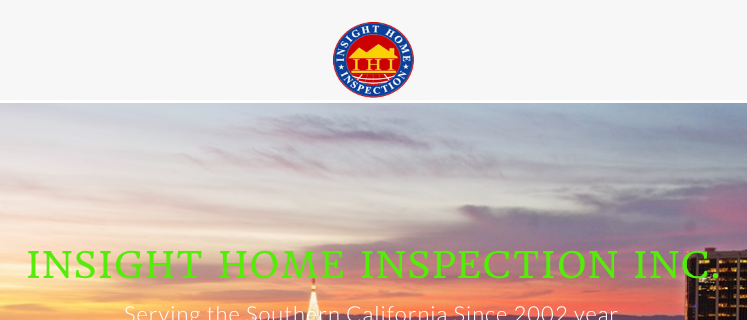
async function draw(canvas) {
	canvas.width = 747;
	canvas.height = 320;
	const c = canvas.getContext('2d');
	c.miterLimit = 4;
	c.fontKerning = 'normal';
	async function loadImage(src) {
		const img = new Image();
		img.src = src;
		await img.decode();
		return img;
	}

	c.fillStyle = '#fff';
	c.fillRect(0, 0, 747, 320);
	c.fillStyle = '#f7f7f7';
	c.fillRect(0, 0, 747, 100);
	c.drawImage(await loadImage('img1.png'), 333, 22, 81, 76);
	c.drawImage(await loadImage('img2.png'), 0, 103, 747, 217);
	c.letterSpacing = '1px';
	c.font = '36px HeadlandOne';
	c.fillStyle = '#54ec08';
	c.fillText('INSIGHT HOME INSPECTION INC.', 26, 278);
	c.font = '300 22px Lato';
	c.fillStyle = '#fff';
	c.fillText('Serving the Southern California Since 2002 year', 124, 322);
}

draw(document.querySelector('canvas'));
